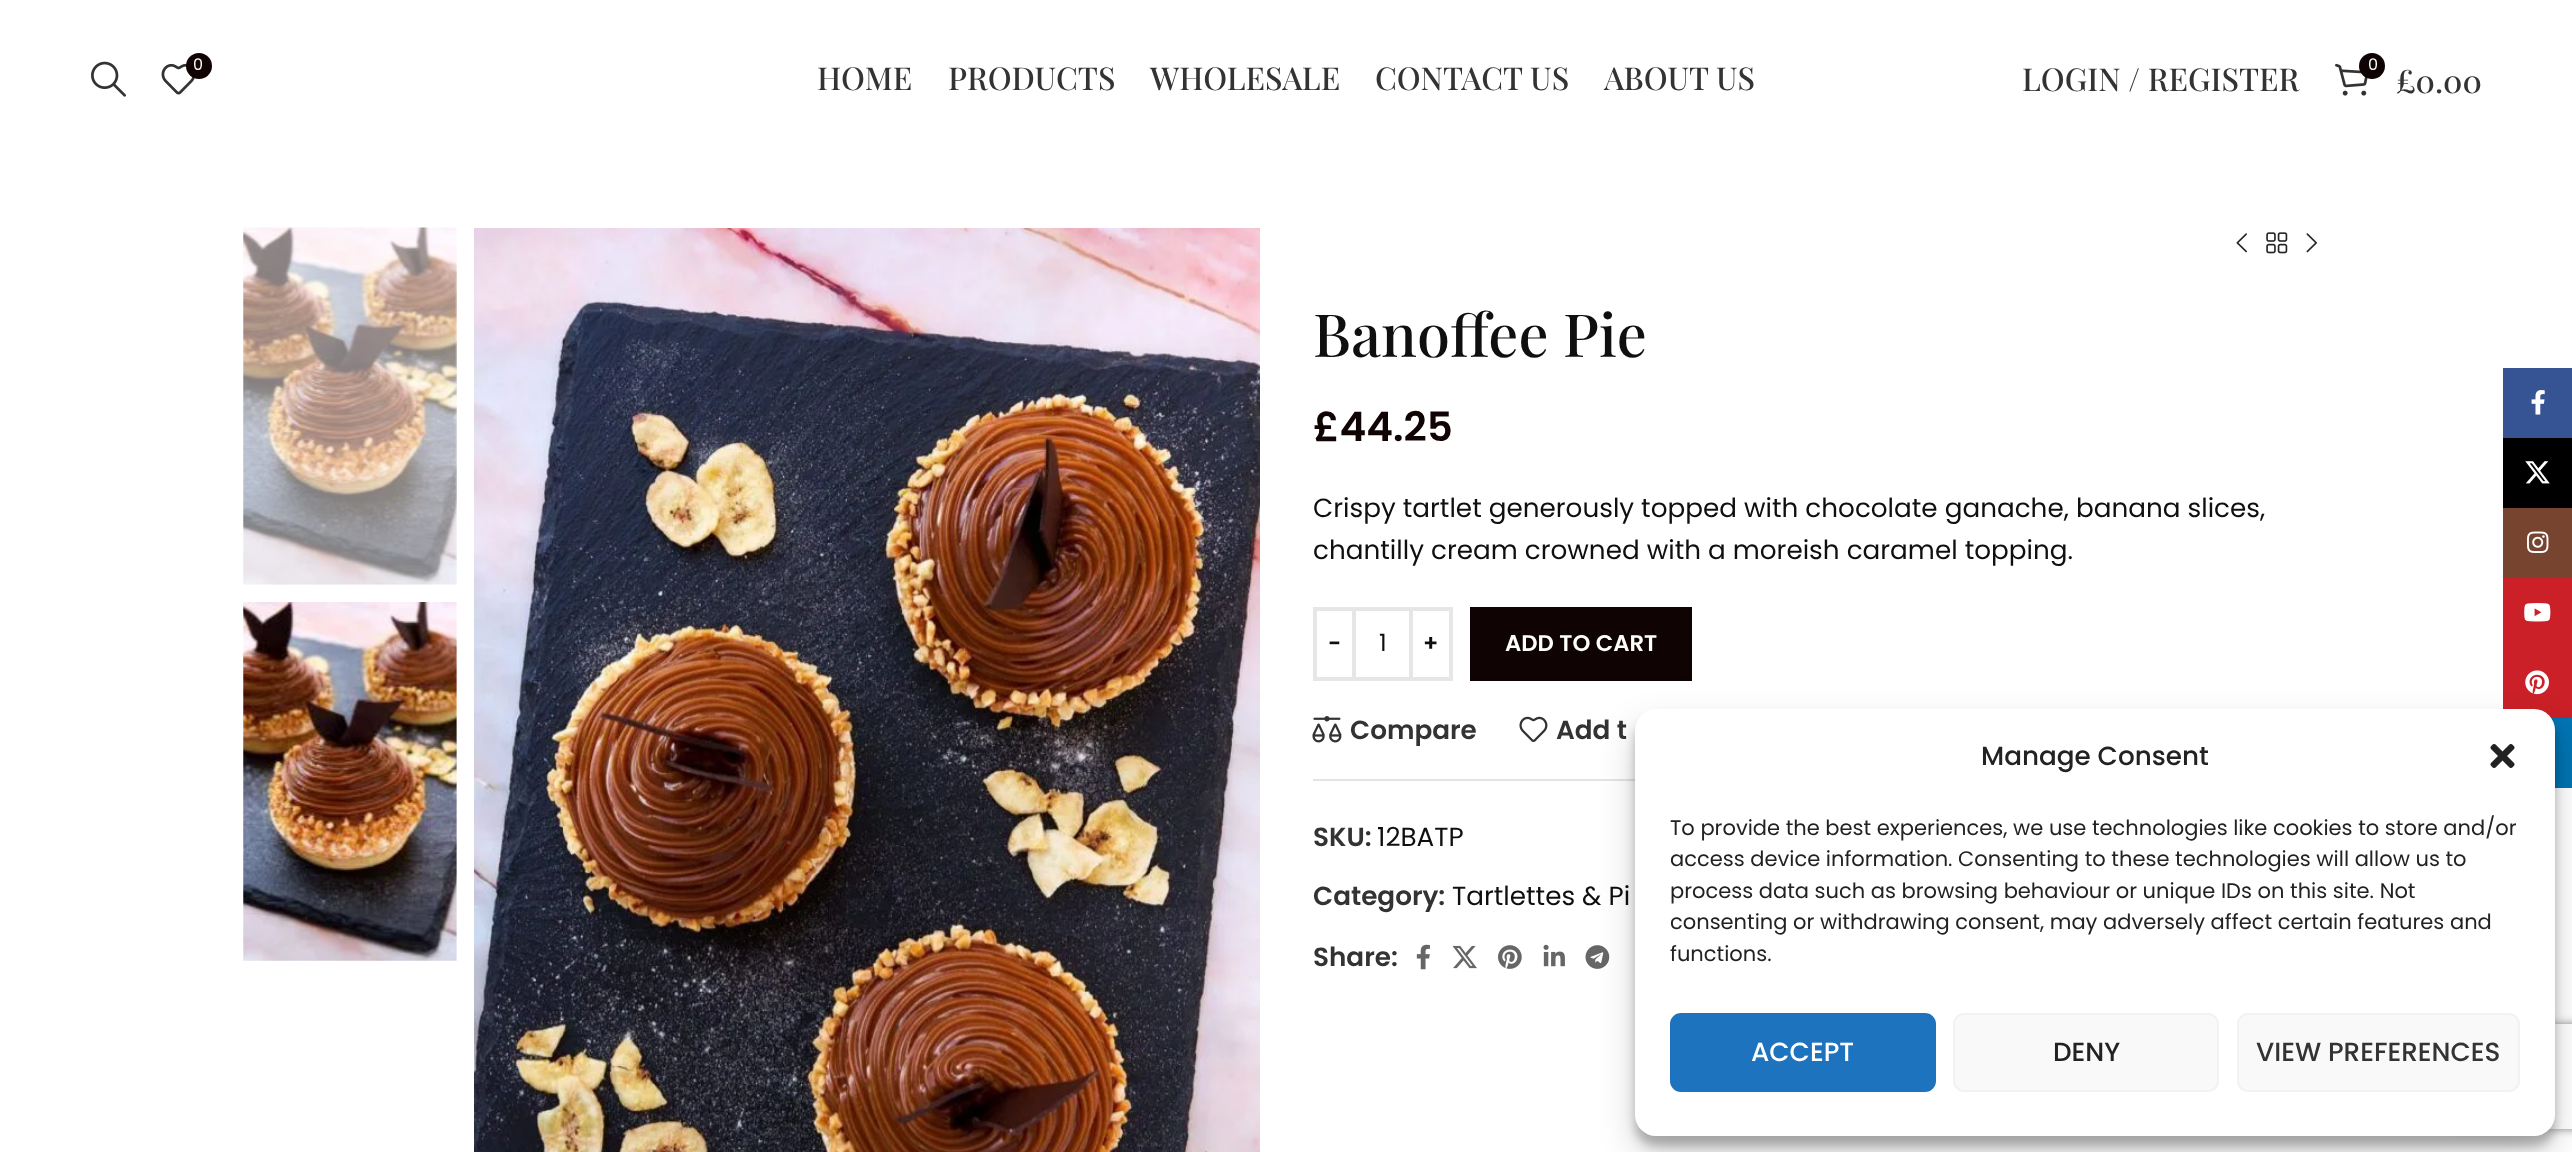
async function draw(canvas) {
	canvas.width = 2572;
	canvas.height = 1152;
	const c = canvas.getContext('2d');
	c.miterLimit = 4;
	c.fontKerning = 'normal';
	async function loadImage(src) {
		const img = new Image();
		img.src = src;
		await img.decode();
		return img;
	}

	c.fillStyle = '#fff';
	c.fillRect(0, 0, 2572, 1152);
	c.drawImage(await loadImage('img1.png'), 91, 61, 35, 36);
	c.drawImage(await loadImage('img2.png'), 161, 63, 34, 32);
	c.fillStyle = '#0f0303';
	c.beginPath();
	c.arc(199, 66, 13, 0, 2 * Math.PI);
	c.fill();
	c.font = '16px Poppins';
	c.fillStyle = '#fff';
	c.fillText('0', 193, 70);
	c.font = '500 31.5px Playfair Display';
	c.fillStyle = '#333';
	for (const [text, x, y] of [
		['HOME', 817, 90],
		['PRODUCTS', 948, 90],
		['WHOLESALE', 1150, 90],
		['CONTACT US', 1375, 90],
		['ABOUT US', 1604, 90],
		['LOGIN / REGISTER', 2022, 91],
	]) {
		c.fillText(text, x, y);
	}
	c.drawImage(await loadImage('img3.png'), 2335, 63, 33, 33);
	c.fillStyle = '#0f0303';
	c.beginPath();
	c.arc(2372, 66, 13, 0, 2 * Math.PI);
	c.fill();
	c.font = '16px Poppins';
	c.fillStyle = '#fff';
	c.fillText('0', 2368, 70);
	c.font = '500 31.5px Playfair Display';
	c.fillStyle = '#333';
	c.fillText('£0.00', 2396, 93);
	c.drawImage(await loadImage('img4.png'), 243, 227, 214, 358);
	c.drawImage(await loadImage('img5.png'), 243, 602, 214, 359);
	c.drawImage(await loadImage('img6.png'), 474, 228, 786, 924);
	c.drawImage(await loadImage('img7.png'), 2236, 233, 11, 20);
	c.drawImage(await loadImage('img8.png'), 2266, 232, 22, 22);
	c.drawImage(await loadImage('img9.png'), 2306, 233, 11, 20);
	c.font = '500 59.5px Playfair Display';
	c.fillStyle = '#0f0f0f';
	c.fillText('Banoffee Pie', 1313, 357);
	c.font = '600 40.5px Poppins';
	c.fillStyle = '#0f0303';
	c.fillText('£44.25', 1313, 441);
	c.font = '26.25px Poppins';
	c.fillStyle = '#0f0f0f';
	c.fillText('Crispy tartlet generously topped with chocolate ganache, banana slices,', 1313, 517);
	c.fillText('chantilly cream crowned with a moreish caramel topping.', 1313, 559);
	c.strokeStyle = '#e6e6e6';
	c.lineWidth = 4;
	c.strokeRect(1315, 609, 39, 70);
	c.font = '600 22.75px Poppins';
	c.fillText('-', 1328, 651);
	c.fillStyle = '#e6e6e6';
	c.fillRect(1356, 607, 53, 4);
	c.fillRect(1356, 677, 53, 4);
	c.font = '24px Poppins';
	c.fillStyle = '#0f0f0f';
	c.fillText('1', 1379, 651);
	c.strokeRect(1411, 609, 40, 70);
	c.font = '600 22.75px Poppins';
	c.fillText('+', 1423, 651);
	c.fillStyle = '#0f0303';
	c.fillRect(1470, 607, 222, 70);
	c.fillStyle = '#0d0303';
	c.fillRect(1470, 677, 222, 4);
	c.fillStyle = '#fff';
	c.fillText('ADD TO CART', 1505, 651);
	c.drawImage(await loadImage('img10.png'), 1312, 716, 30, 27);
	c.font = '600 26.25px Poppins';
	c.fillStyle = '#333';
	c.fillText('Compare', 1350, 739);
	c.drawImage(await loadImage('img11.png'), 1519, 716, 29, 26);
	c.fillText('Add t', 1556, 739);
	c.fillStyle = '#e4e4e4';
	c.fillRect(1313, 779, 322, 2);
	c.fillStyle = '#333';
	c.fillText('SKU:', 1313, 846);
	c.font = '26.25px Poppins';
	c.fillStyle = '#0f0f0f';
	c.fillText('12BATP', 1377, 846);
	c.font = '600 26.25px Poppins';
	c.fillStyle = '#333';
	c.fillText('Category:', 1313, 905);
	c.font = '26.25px Poppins';
	c.fillStyle = '#0f0f0f';
	c.fillText('Tartlettes & Pi', 1452, 905);
	c.font = '600 26.25px Poppins';
	c.fillStyle = '#333';
	c.fillText('Share:', 1313, 966);
	c.drawImage(await loadImage('img12.png'), 1416, 944, 14, 26);
	c.drawImage(await loadImage('img13.png'), 1452, 945, 25, 24);
	c.drawImage(await loadImage('img14.png'), 1498, 945, 24, 24);
	c.drawImage(await loadImage('img15.png'), 1543, 944, 22, 23);
	c.drawImage(await loadImage('img16.png'), 1585, 945, 25, 24);
	c.fillStyle = '#365493';
	c.fillRect(2503, 368, 69, 70);
	c.drawImage(await loadImage('img17.png'), 2531, 390, 14, 25);
	c.fillStyle = '#000';
	c.fillRect(2503, 438, 69, 70);
	c.drawImage(await loadImage('img18.png'), 2525, 461, 25, 23);
	c.fillStyle = '#774430';
	c.fillRect(2503, 508, 69, 70);
	c.drawImage(await loadImage('img19.png'), 2527, 531, 22, 22);
	c.fillStyle = '#cb2027';
	c.fillRect(2503, 578, 69, 140);
	c.drawImage(await loadImage('img20.png'), 2524, 603, 27, 19);
	c.drawImage(await loadImage('img21.png'), 2525, 670, 24, 25);
	c.fillStyle = '#0274b3';
	c.fillRect(2551, 718, 21, 70);
	c.fillStyle = '#0000003b';
	c.filter = 'blur(5px)';
	c.beginPath();
	c.roundRect(1635, 719, 920, 427, 21);
	c.fill();
	c.filter = 'none';
	c.fillStyle = '#00000030';
	c.filter = 'blur(17.5px)';
	c.beginPath();
	c.roundRect(1635, 726, 920, 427, 21);
	c.fill();
	c.filter = 'none';
	c.save();
	c.beginPath();
	c.moveTo(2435, 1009);
	c.lineTo(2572, 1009);
	c.lineTo(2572, 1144);
	c.lineTo(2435, 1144);
	c.closePath();
	c.moveTo(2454, 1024);
	c.lineTo(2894, 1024);
	c.bezierCurveTo(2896, 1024, 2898, 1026, 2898, 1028);
	c.lineTo(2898, 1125);
	c.bezierCurveTo(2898, 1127, 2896, 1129, 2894, 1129);
	c.lineTo(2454, 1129);
	c.bezierCurveTo(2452, 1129, 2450, 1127, 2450, 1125);
	c.lineTo(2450, 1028);
	c.bezierCurveTo(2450, 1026, 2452, 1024, 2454, 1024);
	c.closePath();
	c.clip('evenodd');
	c.fillStyle = '#808080';
	c.filter = 'blur(4.5px)';
	c.beginPath();
	c.roundRect(2450, 1024, 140, 105, 4);
	c.fill();
	c.filter = 'none';
	c.restore();
	c.fillStyle = '#fff';
	c.beginPath();
	c.roundRect(1635, 709, 920, 427, 21);
	c.fill();
	c.font = '500 26.25px Poppins';
	c.fillStyle = '#222';
	c.fillText('Manage Consent', 1981, 765);
	c.drawImage(await loadImage('img22.png'), 2490, 744, 25, 24);
	c.font = '21px Poppins';
	for (const [text, x, y] of [
		['To provide the best experiences, we use technologies like cookies to store and/or', 1670, 835],
		['access device information. Consenting to these technologies will allow us to', 1670, 866],
		['process data such as browsing behaviour or unique IDs on this site. Not', 1670, 898],
		['consenting or withdrawing consent, may adversely affect certain features and', 1670, 929],
		['functions.', 1670, 961],
	]) {
		c.fillText(text, x, y);
	}
	c.fillStyle = '#1e73be';
	c.beginPath();
	c.roundRect(1671, 1014, 264, 77, 10);
	c.fill();
	c.strokeStyle = '#1e73be';
	c.lineWidth = 2;
	c.stroke();
	c.font = '500 26.25px Poppins';
	c.fillStyle = '#fff';
	c.fillText('ACCEPT', 1751, 1061);
	c.fillStyle = '#f9f9f9';
	c.beginPath();
	c.roundRect(1954, 1014, 264, 77, 10);
	c.fill();
	c.strokeStyle = '#f2f2f2';
	c.stroke();
	c.fillStyle = '#222';
	c.fillText('DENY', 2053, 1061);
	c.fillStyle = '#f9f9f9';
	c.beginPath();
	c.roundRect(2238, 1014, 281, 77, 10);
	c.fill();
	c.stroke();
	c.fillStyle = '#333';
	c.fillText('VIEW PREFERENCES', 2256, 1061);
}

draw(document.querySelector('canvas'));
